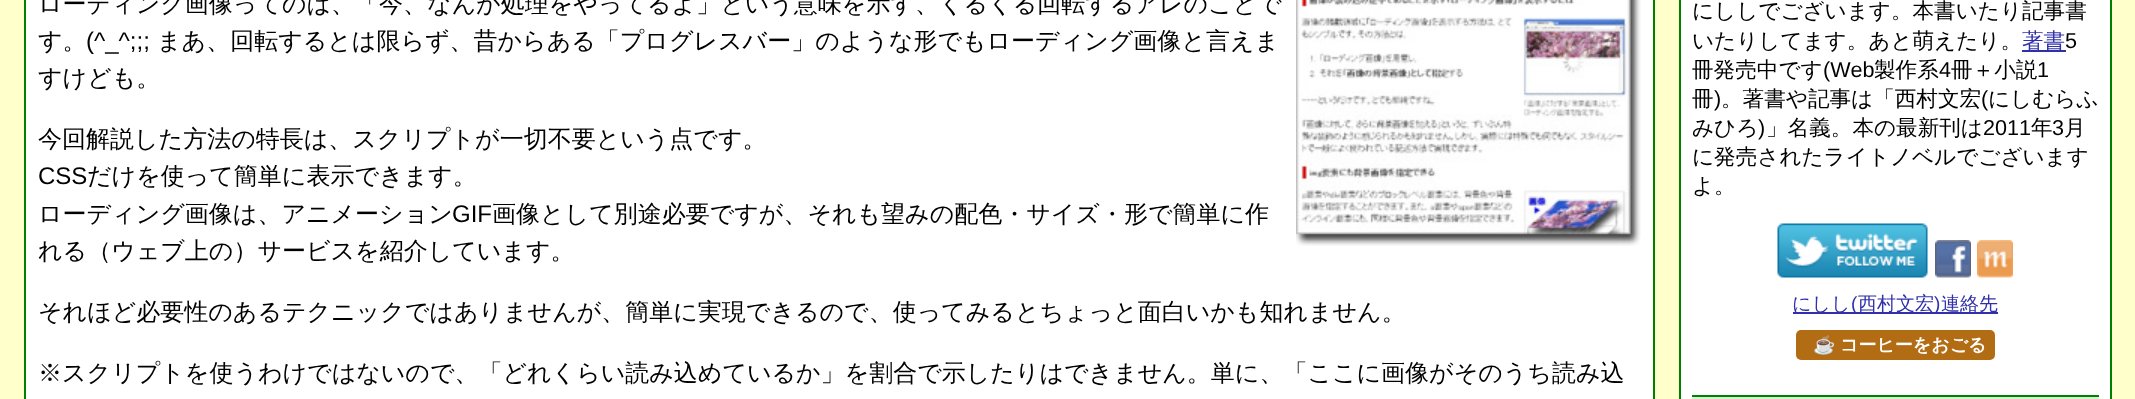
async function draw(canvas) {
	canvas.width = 2135;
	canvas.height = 399;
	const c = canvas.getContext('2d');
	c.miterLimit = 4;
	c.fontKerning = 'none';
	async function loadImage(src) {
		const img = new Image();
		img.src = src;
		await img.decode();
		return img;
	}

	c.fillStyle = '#ffc';
	c.fillRect(0, 0, 2135, 399);
	c.fillStyle = '#fff';
	c.beginPath();
	c.rect(25, -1, 1629, 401);
	c.fill();
	c.strokeStyle = '#008000';
	c.lineWidth = 2;
	c.stroke();
	c.font = '500 24px WenQuanYi Zen Hei';
	c.fillStyle = '#000';
	c.fillText('ローディング画像ってのは、「今、なんか処理をやってるよ」という意味を示す、くるくる回転するアレのことで', 38, 12);
	c.fillText('す。', 38, 49);
	c.font = '24px Liberation Sans';
	c.fillText('(^_^;;;', 86, 49);
	c.font = '500 24px WenQuanYi Zen Hei';
	c.fillText('まあ、回転するとは限らず、昔からある「プログレスバー」のような形でもローディング画像と言えま', 157, 49);
	c.fillText('すけども。', 38, 86);
	c.drawImage(await loadImage('img1.png'), 1296, 0, 345, 246);
	c.fillText('今回解説した方法の特長は、スクリプトが一切不要という点です。', 38, 147);
	c.font = '24px Liberation Sans';
	c.fillText('CSS', 38, 184);
	c.font = '500 24px WenQuanYi Zen Hei';
	c.fillText('だけを使って簡単に表示できます。', 87, 184);
	c.fillText('ローディング画像は、アニメーション', 38, 222);
	c.font = '24px Liberation Sans';
	c.fillText('GIF', 452, 222);
	c.font = '500 24px WenQuanYi Zen Hei';
	for (const [text, x, y] of [
		['画像として別途必要ですが、それも望みの配色・サイズ・形で簡単に作', 492, 222],
		['れる（ウェブ上の）サービスを紹介しています。', 38, 259],
		['それほど必要性のあるテクニックではありませんが、簡単に実現できるので、使ってみるとちょっと面白いかも知れません。', 38, 320],
		['※スクリプトを使うわけではないので、「どれくらい読み込めているか」を割合で示したりはできません。単に、「ここに画像がそのうち読み込', 38, 381],
	]) {
		c.fillText(text, x, y);
	}
	c.fillStyle = '#fff';
	c.beginPath();
	c.rect(1680, -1, 431, 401);
	c.fill();
	c.stroke();
	c.font = '500 21.6px WenQuanYi Zen Hei';
	c.fillStyle = '#000';
	c.fillText('にししでございます。本書いたり記事書', 1692, 18);
	c.fillText('いたりしてます。あと萌えたり。', 1692, 48);
	c.fillStyle = '#3030aa';
	c.fillRect(2022, 50, 44, 2);
	c.fillText('著書', 2022, 48);
	c.font = '21.6px Liberation Sans';
	c.fillStyle = '#000';
	c.fillText('5', 2065, 48);
	c.font = '500 21.6px WenQuanYi Zen Hei';
	c.fillText('冊発売中です', 1692, 77);
	c.font = '21.6px Liberation Sans';
	c.fillText('(Web', 1823, 77);
	c.font = '500 21.6px WenQuanYi Zen Hei';
	c.fillText('製作系', 1874, 77);
	c.font = '21.6px Liberation Sans';
	c.fillText('4', 1939, 77);
	c.font = '500 21.6px WenQuanYi Zen Hei';
	c.fillText('冊＋小説', 1951, 77);
	c.font = '21.6px Liberation Sans';
	c.fillText('1', 2037, 77);
	c.font = '500 21.6px WenQuanYi Zen Hei';
	c.fillText('冊', 1692, 106);
	c.font = '21.6px Liberation Sans';
	c.fillText(')', 1714, 106);
	c.font = '500 21.6px WenQuanYi Zen Hei';
	c.fillText('。著書や記事は「西村文宏', 1721, 106);
	c.font = '21.6px Liberation Sans';
	c.fillText('(', 1981, 106);
	c.font = '500 21.6px WenQuanYi Zen Hei';
	c.fillText('にしむらふ', 1988, 106);
	c.fillText('みひろ', 1692, 135);
	c.font = '21.6px Liberation Sans';
	c.fillText(')', 1758, 135);
	c.font = '500 21.6px WenQuanYi Zen Hei';
	c.fillText('」名義。本の最新刊は', 1766, 135);
	c.font = '21.6px Liberation Sans';
	c.fillText('2011', 1983, 135);
	c.font = '500 21.6px WenQuanYi Zen Hei';
	c.fillText('年', 2031, 135);
	c.font = '21.6px Liberation Sans';
	c.fillText('3', 2052, 135);
	c.font = '500 21.6px WenQuanYi Zen Hei';
	for (const [text, x, y] of [
		['月', 2064, 135],
		['に発売されたライトノベルでございます', 1692, 164],
		['よ。', 1692, 193],
	]) {
		c.fillText(text, x, y);
	}
	c.drawImage(await loadImage('img2.png'), 1777, 223, 151, 55);
	c.drawImage(await loadImage('img3.png'), 1935, 240, 36, 38);
	c.drawImage(await loadImage('img4.png'), 1977, 240, 36, 38);
	c.fillStyle = '#3030aa';
	c.fillRect(1793, 312, 205, 2);
	c.font = '500 19px WenQuanYi Zen Hei';
	c.fillText('にしし', 1792, 310);
	c.font = '19px Liberation Sans';
	c.fillText('(', 1851, 310);
	c.font = '500 19px WenQuanYi Zen Hei';
	c.fillText('西村文宏', 1858, 310);
	c.font = '19px Liberation Sans';
	c.fillText(')', 1934, 310);
	c.font = '500 19px WenQuanYi Zen Hei';
	c.fillText('連絡先', 1941, 310);
	c.fillStyle = '#b26c13';
	c.beginPath();
	c.roundRect(1796, 330, 199, 30, 5);
	c.fill();
	c.font = 'bold 18px Noto Color Emoji';
	c.fillStyle = '#fff';
	c.fillText('☕', 1813, 351);
	c.font = 'bold 18px WenQuanYi Zen Hei';
	c.fillText('コーヒーをおごる', 1840, 351);
	c.fillStyle = '#cfc';
	c.fillRect(1692, 397, 407, 2);
	c.fillStyle = '#008000';
	c.fillRect(1692, 395, 407, 2);
}

draw(document.querySelector('canvas'));
